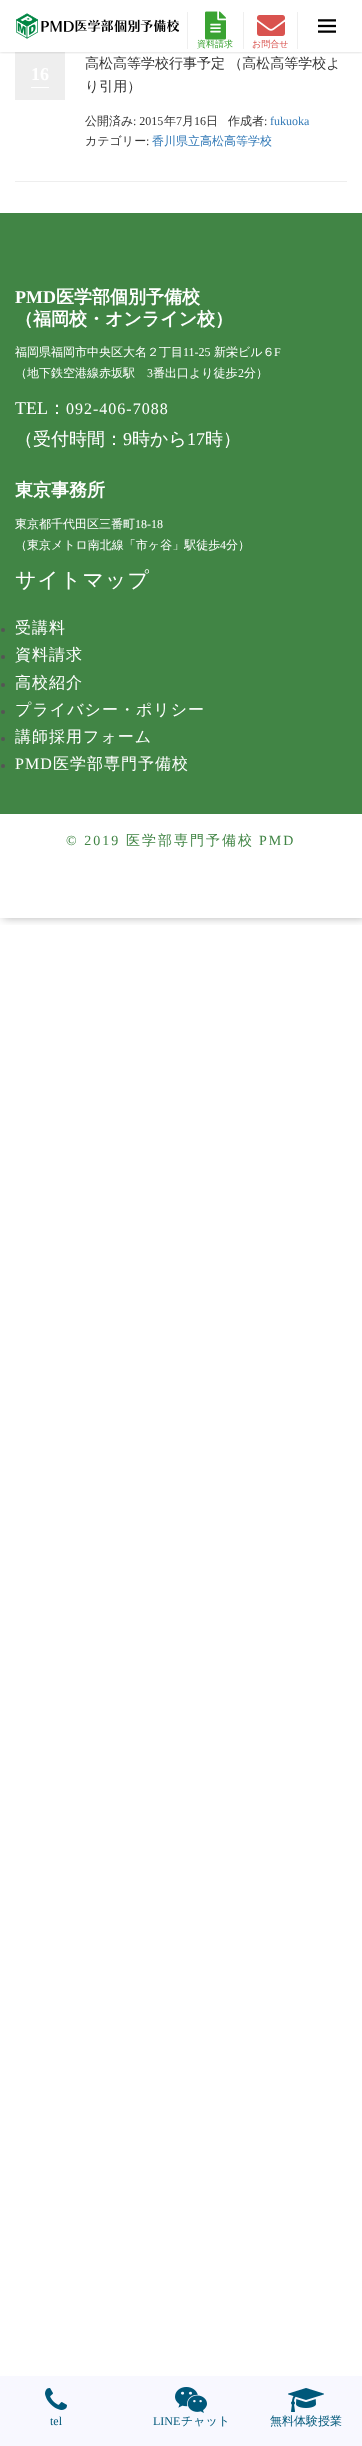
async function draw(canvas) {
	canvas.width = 362;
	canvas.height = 2446;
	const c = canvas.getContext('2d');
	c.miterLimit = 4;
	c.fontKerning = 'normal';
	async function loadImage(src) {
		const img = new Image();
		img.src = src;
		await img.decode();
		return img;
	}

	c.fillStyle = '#fff';
	c.fillRect(0, 0, 362, 2446);
	c.save();
	c.beginPath();
	c.rect(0, 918, 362, 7);
	c.clip();
	c.fillStyle = '#0000004d';
	c.filter = 'blur(5px)';
	c.beginPath();
	c.rect(3, 0, 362, 918);
	c.fill();
	c.filter = 'none';
	c.restore();
	c.fillStyle = '#eee';
	c.fillRect(15, 52, 50, 48);
	c.save();
	c.beginPath();
	c.rect(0, 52, 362, 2);
	c.clip();
	c.fillStyle = '#00000033';
	c.filter = 'blur(1.5px)';
	c.beginPath();
	c.rect(0, 0, 362, 52);
	c.fill();
	c.filter = 'none';
	c.restore();
	c.fillStyle = '#efefef';
	c.fillRect(187, 12, 1, 37);
	c.drawImage(await loadImage('img1.png'), 205, 11, 21, 29);
	c.font = '500 9px WenQuanYi Zen Hei';
	c.fillStyle = '#3aa332';
	c.fillText('資料請求', 197, 47);
	c.fillStyle = '#efefef';
	c.fillRect(297, 12, 1, 37);
	c.fillRect(243, 12, 1, 37);
	c.drawImage(await loadImage('img2.png'), 257, 15, 28, 21);
	c.fillStyle = '#d9534f';
	c.fillText('お問合せ', 252, 47);
	c.drawImage(await loadImage('img3.png'), 16, 13, 164, 26);
	c.drawImage(await loadImage('img4.png'), 318, 19, 18, 14);
	c.fillStyle = '#eee';
	c.fillRect(15, 181, 332, 1);
	c.font = 'bold 18px Liberation Serif';
	c.fillStyle = '#fff';
	c.fillText('16', 31, 80);
	c.fillRect(31, 87, 18, 1);
	c.wordSpacing = '-1px';
	c.font = '500 14px WenQuanYi Zen Hei';
	c.fillStyle = '#333';
	c.fillText('高松高等学校行事予定 （高松高等学校よ', 85, 68);
	c.wordSpacing = '0px';
	c.fillText('り引用）', 85, 91);
	c.font = '500 12px WenQuanYi Zen Hei';
	c.fillText('公開済み', 85, 125);
	c.font = '12px Liberation Serif';
	c.fillText(': 2015', 133, 125);
	c.font = '500 12px WenQuanYi Zen Hei';
	c.fillText('年', 164, 125);
	c.font = '12px Liberation Serif';
	c.fillText('7', 176, 125);
	c.font = '500 12px WenQuanYi Zen Hei';
	c.fillText('月', 182, 125);
	c.font = '12px Liberation Serif';
	c.fillText('16', 194, 125);
	c.font = '500 12px WenQuanYi Zen Hei';
	c.fillText('日', 206, 125);
	c.fillText('作成者', 228, 125);
	c.font = '12px Liberation Serif';
	c.fillText(':', 264, 125);
	c.fillStyle = '#337ab7';
	c.fillText('fukuoka', 270, 125);
	c.font = '500 12px WenQuanYi Zen Hei';
	c.fillStyle = '#333';
	c.fillText('カテゴリー', 85, 145);
	c.font = '12px Liberation Serif';
	c.fillText(':', 146, 145);
	c.font = '500 12px WenQuanYi Zen Hei';
	c.fillStyle = '#337ab7';
	c.fillText('香川県立高松高等学校', 152, 145);
	c.fillStyle = '#418545';
	c.fillRect(0, 213, 362, 601);
	c.font = 'bold 18px Liberation Serif';
	c.fillStyle = '#fff';
	c.fillText('PMD', 15, 303);
	c.font = 'bold 18px WenQuanYi Zen Hei';
	c.fillText('医学部個別予備校', 56, 303);
	c.fillText('（福岡校・オンライン校）', 15, 325);
	c.font = '500 12px WenQuanYi Zen Hei';
	c.fillText('福岡県福岡市中央区大名２丁目', 15, 356);
	c.font = '12px Liberation Serif';
	c.fillText('11-25', 183, 356);
	c.font = '500 12px WenQuanYi Zen Hei';
	c.fillText('新栄ビル６', 214, 356);
	c.font = '12px Liberation Serif';
	c.fillText('F', 274, 356);
	c.font = '500 12px WenQuanYi Zen Hei';
	c.fillText('（地下鉄空港線赤坂駅', 15, 377);
	c.font = '12px Liberation Serif';
	c.fillText('3', 147, 377);
	c.font = '500 12px WenQuanYi Zen Hei';
	c.fillText('番出口より徒歩', 153, 377);
	c.font = '12px Liberation Serif';
	c.fillText('2', 238, 377);
	c.font = '500 12px WenQuanYi Zen Hei';
	c.fillText('分）', 244, 377);
	c.font = '18px Liberation Serif';
	c.fillText('TEL', 15, 414);
	c.font = '500 18px WenQuanYi Zen Hei';
	c.fillText('：', 48, 414);
	c.letterSpacing = '1px';
	c.font = '16px Liberation Serif';
	c.fillText('092-406-7088', 66, 414);
	c.letterSpacing = '0px';
	c.font = '500 18px WenQuanYi Zen Hei';
	c.fillText('（受付時間：', 15, 445);
	c.font = '18px Liberation Serif';
	c.fillText('9', 123, 445);
	c.font = '500 18px WenQuanYi Zen Hei';
	c.fillText('時から', 132, 445);
	c.font = '18px Liberation Serif';
	c.fillText('17', 187, 445);
	c.font = '500 18px WenQuanYi Zen Hei';
	c.fillText('時）', 205, 445);
	c.font = 'bold 18px WenQuanYi Zen Hei';
	c.fillText('東京事務所', 15, 496);
	c.font = '500 12px WenQuanYi Zen Hei';
	c.fillText('東京都千代田区三番町', 15, 528);
	c.font = '12px Liberation Serif';
	c.fillText('18-18', 135, 528);
	c.font = '500 12px WenQuanYi Zen Hei';
	c.fillText('（東京メトロ南北線「市ヶ谷」駅徒歩', 15, 549);
	c.font = '12px Liberation Serif';
	c.fillText('4', 220, 549);
	c.font = '500 12px WenQuanYi Zen Hei';
	c.fillText('分）', 226, 549);
	c.letterSpacing = '1px';
	c.font = '500 21px WenQuanYi Zen Hei';
	c.fillText('サイトマップ', 15, 587);
	c.fillStyle = '#555';
	c.beginPath();
	c.arc(3, 630, 2, 0, 2 * Math.PI);
	c.fill();
	c.font = '500 16px WenQuanYi Zen Hei';
	c.fillStyle = '#fff';
	c.fillText('受講料', 15, 633);
	c.fillStyle = '#555';
	c.beginPath();
	c.arc(3, 657, 2, 0, 2 * Math.PI);
	c.fill();
	c.fillStyle = '#fff';
	c.fillText('資料請求', 15, 660);
	c.fillStyle = '#555';
	c.beginPath();
	c.arc(3, 685, 2, 0, 2 * Math.PI);
	c.fill();
	c.fillStyle = '#fff';
	c.fillText('高校紹介', 15, 688);
	c.fillStyle = '#555';
	c.beginPath();
	c.arc(3, 712, 2, 0, 2 * Math.PI);
	c.fill();
	c.fillStyle = '#fff';
	c.fillText('プライバシー・ポリシー', 15, 715);
	c.fillStyle = '#555';
	c.beginPath();
	c.arc(3, 739, 2, 0, 2 * Math.PI);
	c.fill();
	c.fillStyle = '#fff';
	c.fillText('講師採用フォーム', 15, 742);
	c.fillStyle = '#555';
	c.beginPath();
	c.arc(3, 766, 2, 0, 2 * Math.PI);
	c.fill();
	c.font = '16px Liberation Serif';
	c.fillStyle = '#fff';
	c.fillText('PMD', 15, 769);
	c.font = '500 16px WenQuanYi Zen Hei';
	c.fillText('医学部専門予備校', 53, 769);
	c.letterSpacing = '2px';
	c.font = '14px Liberation Serif';
	c.fillStyle = '#418545';
	c.fillText('© 2019', 66, 845);
	c.font = '500 14px WenQuanYi Zen Hei';
	c.fillText('医学部専門予備校', 126, 845);
	c.font = '14px Liberation Serif';
	c.fillText('PMD', 259, 845);
	c.fillStyle = '#f8f8ff';
	c.fillRect(0, 2376, 362, 70);
	c.drawImage(await loadImage('img5.png'), 45, 2388, 22, 22);
	c.letterSpacing = '0px';
	c.font = '12px Liberation Serif';
	c.fillStyle = '#00587a';
	c.fillText('tel', 50, 2425);
	c.drawImage(await loadImage('img6.png'), 175, 2387, 32, 26);
	c.fillText('LINE', 153, 2425);
	c.font = '500 12px WenQuanYi Zen Hei';
	c.fillText('チャット', 181, 2425);
	c.drawImage(await loadImage('img7.png'), 288, 2388, 36, 24);
	c.fillText('無料体験授業', 270, 2425);
}

draw(document.querySelector('canvas'));
